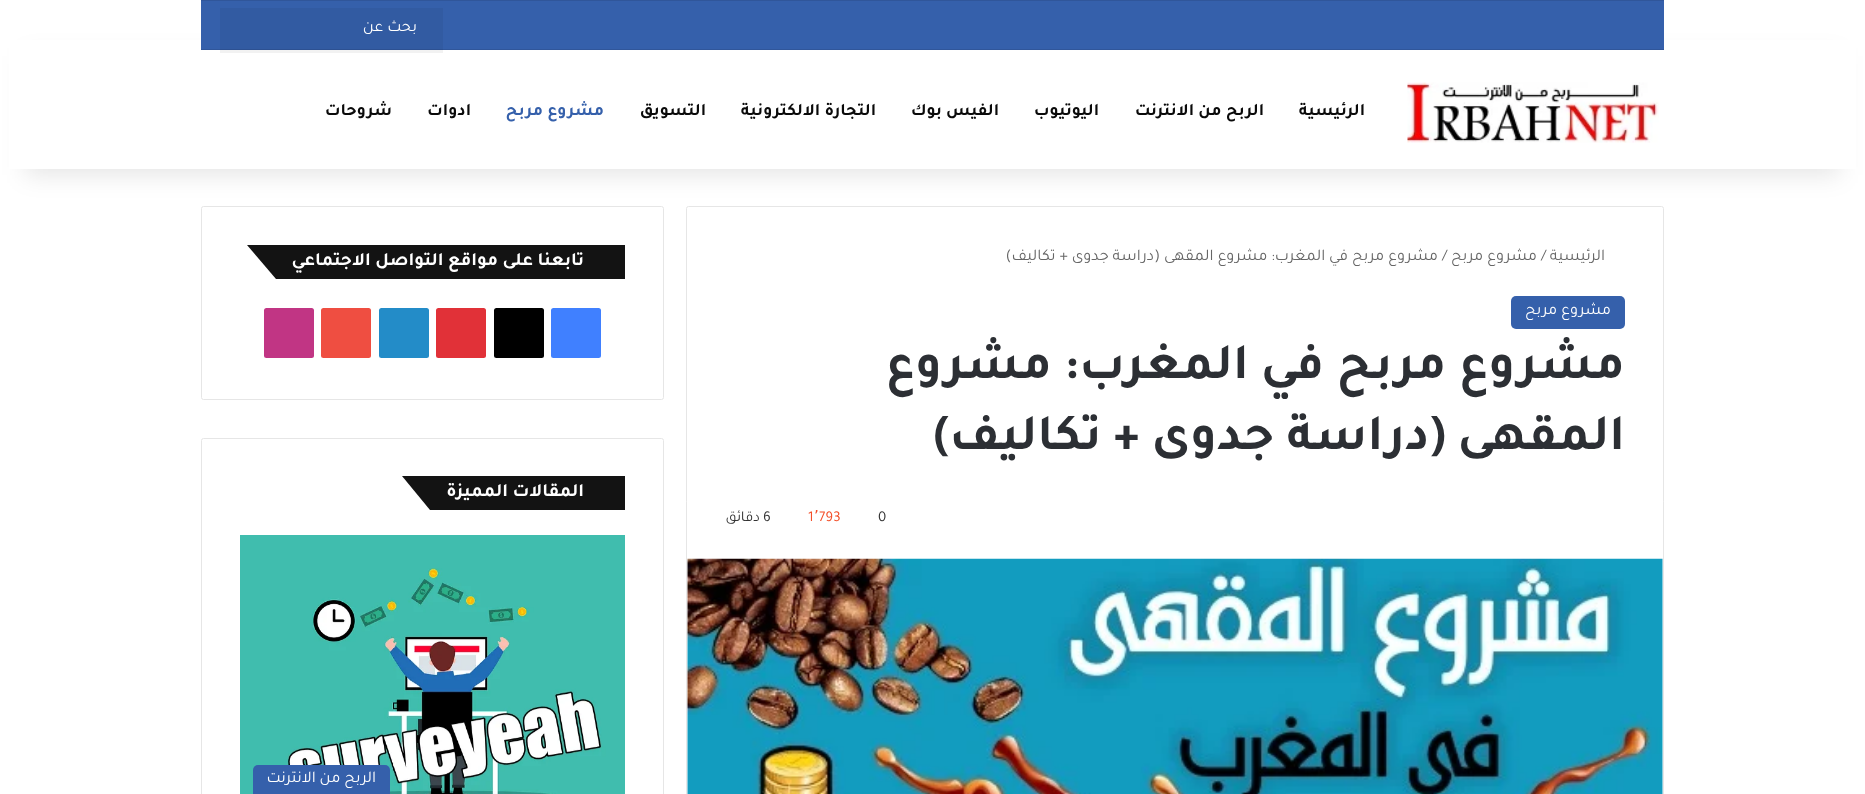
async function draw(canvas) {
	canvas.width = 1865;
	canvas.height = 794;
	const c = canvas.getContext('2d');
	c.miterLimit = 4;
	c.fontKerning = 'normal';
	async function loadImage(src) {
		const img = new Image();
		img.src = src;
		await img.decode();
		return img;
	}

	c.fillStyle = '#fff';
	c.fillRect(0, 0, 1865, 794);
	c.beginPath();
	c.roundRect(686.5, 206.5, 977, 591, 2);
	c.strokeStyle = '#e6e6e6';
	c.stroke();
	c.beginPath();
	c.roundRect(201.5, 206.5, 462, 193, 2);
	c.stroke();
	c.fillStyle = '#0000001a';
	c.filter = 'blur(12.5px)';
	c.beginPath();
	c.rect(25, 56, 1815, 119);
	c.fill();
	c.filter = 'none';
	for (const [x, y, w, h, color] of [
		[9, 40, 1847, 129, '#fff'],
		[201, 1, 1463, 48, '#3560ab'],
		[201, 0, 1463, 1, '#30569a'],
		[201, 49, 1463, 1, '#30569a'],
		[220, 8, 223, 45, '#0000000d'],
	]) {
		c.fillStyle = color;
		c.fillRect(x, y, w, h);
	}
	c.direction = 'rtl';
	c.font = '16.25px Tajawal';
	c.fillStyle = '#fff';
	c.fillText('بحث عن', 417, 31);
	c.drawImage(await loadImage('img1.png'), 1407, 82, 252, 61);
	c.font = 'bold 17.5px Tajawal';
	c.fillStyle = '#0a0a0a';
	for (const [text, x, y] of [
		['الرئيسية', 1365, 115],
		['الربح من الانترنت', 1264, 115],
		['اليوتيوب', 1099, 115],
		['الفيس بوك', 999, 115],
		['التجارة الالكترونية', 876, 115],
		['التسويق', 706, 115],
	]) {
		c.fillText(text, x, y);
	}
	c.fillStyle = '#3560ab';
	c.fillText('مشروع مربح', 604, 115);
	c.fillStyle = '#0a0a0a';
	c.fillText('ادوات', 471, 115);
	c.fillText('شروحات', 392, 115);
	c.font = '16.25px Tajawal';
	c.fillStyle = '#666';
	c.fillText('الرئيسية', 1605, 260);
	c.direction = 'ltr';
	c.fillText('/', 1541, 260);
	c.direction = 'rtl';
	c.fillText('مشروع مربح', 1537, 260);
	c.direction = 'ltr';
	c.fillText('/', 1442, 260);
	c.direction = 'rtl';
	c.fillText('مشروع مربح في المغرب: مشروع المقهى (دراسة جدوى + تكاليف)', 1438, 260);
	c.fillStyle = '#3560ab';
	c.beginPath();
	c.roundRect(1511, 296, 114, 33, 5);
	c.fill();
	c.fillStyle = '#fff';
	c.fillText('مشروع مربح', 1611, 314);
	c.font = 'bold 51.25px Tajawal';
	c.fillStyle = '#2c2f34';
	c.fillText('مشروع مربح في المغرب: مشروع', 1625, 378);
	c.fillText('المقهى (دراسة جدوى + تكاليف)', 1625, 449);
	c.direction = 'ltr';
	c.font = '15px Tajawal';
	c.fillStyle = '#333';
	c.fillText('0', 878, 521);
	c.fillStyle = '#f3502a';
	c.fillText('793', 819, 521);
	c.font = '15px DejaVu Sans';
	c.fillText('٬', 814, 521);
	c.font = '15px Tajawal';
	c.fillText('1', 808, 521);
	c.fillStyle = '#333';
	c.fillText('6', 763, 521);
	c.direction = 'rtl';
	c.fillText('دقائق', 760, 521);
	c.drawImage(await loadImage('img2.png'), 687, 558, 976, 236);
	c.fillStyle = '#131313';
	c.fillRect(489, 245, 136, 34);
	c.beginPath();
	c.moveTo(247, 245);
	c.lineTo(489, 245);
	c.lineTo(518, 279);
	c.lineTo(276, 279);
	c.closePath();
	c.fill();
	c.font = 'bold 18.75px Tajawal';
	c.fillStyle = '#fff';
	c.fillText('تابعنا على مواقع التواصل الاجتماعي', 584, 265);
	c.fillStyle = '#4080ff';
	c.beginPath();
	c.roundRect(551, 308, 50, 50, 2.5);
	c.fill();
	c.fillStyle = '#000';
	c.beginPath();
	c.roundRect(494, 308, 50, 50, 2.5);
	c.fill();
	c.fillStyle = '#e13138';
	c.beginPath();
	c.roundRect(436, 308, 50, 50, 2.5);
	c.fill();
	c.fillStyle = '#238cc8';
	c.beginPath();
	c.roundRect(379, 308, 50, 50, 2.5);
	c.fill();
	c.fillStyle = '#ef4e41';
	c.beginPath();
	c.roundRect(321, 308, 50, 50, 2.5);
	c.fill();
	c.fillStyle = '#c13584';
	c.beginPath();
	c.roundRect(264, 308, 50, 50, 2.5);
	c.fill();
	c.beginPath();
	c.roundRect(201.5, 438.5, 462, 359, 2);
	c.stroke();
	c.fillStyle = '#131313';
	c.fillRect(536, 476, 89, 34);
	c.beginPath();
	c.moveTo(402, 476);
	c.lineTo(536, 476);
	c.lineTo(564, 510);
	c.lineTo(430, 510);
	c.closePath();
	c.fill();
	c.fillStyle = '#fff';
	c.fillText('المقالات المميزة', 584, 496);
	c.drawImage(await loadImage('img3.png'), 240, 535, 385, 259);
	c.fillStyle = '#3560ab';
	c.beginPath();
	c.roundRect(253, 765, 137, 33, 5);
	c.fill();
	c.font = '16.25px Tajawal';
	c.fillStyle = '#fff';
	c.fillText('الربح من الانترنت', 376, 782);
}

draw(document.querySelector('canvas'));
